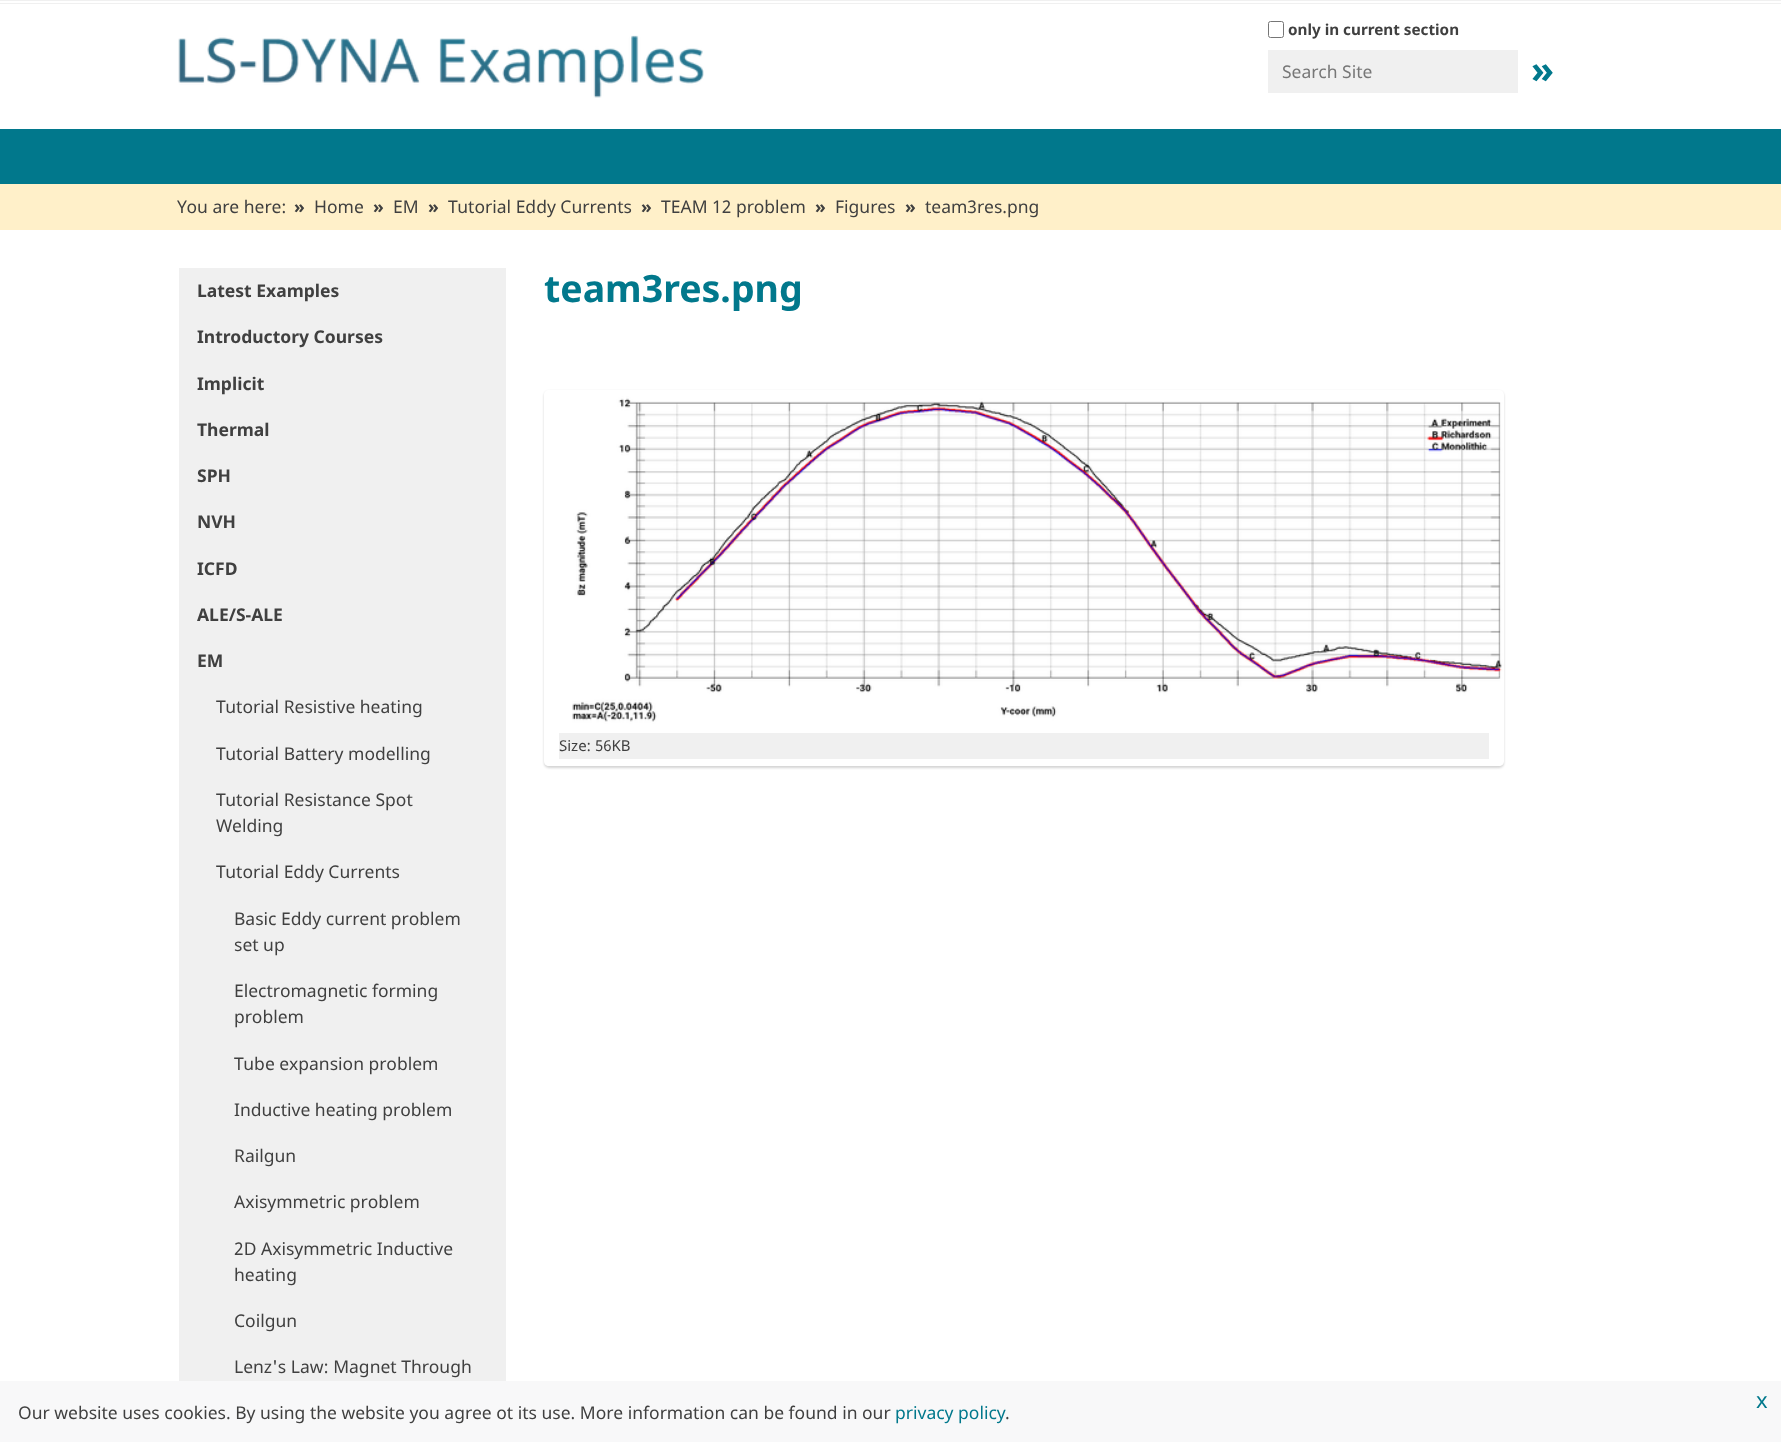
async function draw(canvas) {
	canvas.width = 1781;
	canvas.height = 1442;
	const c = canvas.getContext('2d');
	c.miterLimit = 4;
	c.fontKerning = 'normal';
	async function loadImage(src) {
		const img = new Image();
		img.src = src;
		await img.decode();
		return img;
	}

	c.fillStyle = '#fff';
	c.fillRect(0, 0, 1781, 1442);
	c.fillStyle = '#f0f0f0';
	c.fillRect(0, 0, 1781, 1);
	c.fillRect(0, 3, 1781, 1);
	c.drawImage(await loadImage('img1.png'), 178, 35, 526, 63);
	c.beginPath();
	c.roundRect(1268.5, 21.5, 15, 16, 2);
	c.strokeStyle = '#767676';
	c.stroke();
	c.font = 'bold 15.25px Noto Sans';
	c.fillStyle = '#404040';
	c.fillText('only in current section', 1288, 35);
	c.fillStyle = '#f0f0f0';
	c.fillRect(1268, 50, 250, 43);
	c.font = '17.5px Noto Sans';
	c.fillStyle = '#777';
	c.fillText('Search Site', 1282, 78);
	c.font = 'bold 37.5px Noto Sans';
	c.fillStyle = '#01788c';
	c.fillText('»', 1531, 83);
	c.fillRect(0, 129, 1781, 55);
	c.fillStyle = '#fff0c9';
	c.fillRect(0, 184, 1781, 46);
	c.font = '17.5px Noto Sans';
	c.fillStyle = '#404040';
	c.fillText('You are here:', 177, 213);
	c.font = 'bold 17.5px Noto Sans';
	c.fillText('»', 294, 213);
	c.font = '17.5px Noto Sans';
	c.fillText('Home', 314, 213);
	c.font = 'bold 17.5px Noto Sans';
	c.fillText('»', 373, 213);
	c.font = '17.5px Noto Sans';
	c.fillText('EM', 393, 213);
	c.font = 'bold 17.5px Noto Sans';
	c.fillText('»', 428, 213);
	c.font = '17.5px Noto Sans';
	c.fillText('Tutorial Eddy Currents', 448, 213);
	c.font = 'bold 17.5px Noto Sans';
	c.fillText('»', 641, 213);
	c.font = '17.5px Noto Sans';
	c.fillText('TEAM 12 problem', 661, 213);
	c.font = 'bold 17.5px Noto Sans';
	c.fillText('»', 815, 213);
	c.font = '17.5px Noto Sans';
	c.fillText('Figures', 835, 213);
	c.font = 'bold 17.5px Noto Sans';
	c.fillText('»', 905, 213);
	c.font = '17.5px Noto Sans';
	c.fillText('team3res.png', 925, 213);
	c.fillStyle = '#f8f8f9';
	c.fillRect(0, 1381, 1781, 61);
	c.font = '22px Noto Sans';
	c.fillStyle = '#01788c';
	c.fillText('x', 1756, 1408);
	c.font = '17.5px Noto Sans';
	c.fillStyle = '#404040';
	c.fillText('Our website uses cookies. By using the website you agree ot its use. More information can be found in our', 18, 1419);
	c.fillStyle = '#01788c';
	c.fillText('privacy policy', 895, 1419);
	c.fillStyle = '#404040';
	c.fillText('.', 1005, 1419);
	c.fillStyle = '#f0f0f0';
	c.fillRect(179, 268, 327, 1113);
	c.font = 'bold 17.5px Noto Sans';
	c.fillStyle = '#404040';
	for (const [text, x, y] of [
		['Latest Examples', 197, 297],
		['Introductory Courses', 197, 343],
		['Implicit', 197, 390],
		['Thermal', 197, 436],
		['SPH', 197, 482],
		['NVH', 197, 528],
		['ICFD', 197, 575],
		['ALE/S-ALE', 197, 621],
		['EM', 197, 667],
	]) {
		c.fillText(text, x, y);
	}
	c.font = '17.5px Noto Sans';
	for (const [text, x, y] of [
		['Tutorial Resistive heating', 216, 713],
		['Tutorial Battery modelling', 216, 760],
		['Tutorial Resistance Spot', 216, 806],
		['Welding', 216, 832],
		['Tutorial Eddy Currents', 216, 878],
		['Basic Eddy current problem', 234, 925],
		['set up', 234, 951],
		['Electromagnetic forming', 234, 997],
		['problem', 234, 1023],
		['Tube expansion problem', 234, 1070],
		['Inductive heating problem', 234, 1116],
		['Railgun', 234, 1162],
		['Axisymmetric problem', 234, 1208],
		['2D Axisymmetric Inductive', 234, 1255],
		['heating', 234, 1281],
		['Coilgun', 234, 1327],
		['Lenz\'s Law: Magnet Through', 234, 1373],
	]) {
		c.fillText(text, x, y);
	}
	c.font = 'bold 37.5px Noto Sans';
	c.fillStyle = '#01788c';
	c.fillText('team3res.png', 544, 302);
	c.save();
	c.beginPath();
	c.moveTo(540, 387);
	c.lineTo(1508, 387);
	c.lineTo(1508, 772);
	c.lineTo(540, 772);
	c.closePath();
	c.moveTo(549, 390);
	c.lineTo(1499, 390);
	c.bezierCurveTo(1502, 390, 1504, 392, 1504, 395);
	c.lineTo(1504, 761);
	c.bezierCurveTo(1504, 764, 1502, 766, 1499, 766);
	c.lineTo(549, 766);
	c.bezierCurveTo(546, 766, 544, 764, 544, 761);
	c.lineTo(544, 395);
	c.bezierCurveTo(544, 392, 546, 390, 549, 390);
	c.closePath();
	c.clip('evenodd');
	c.fillStyle = '#0000002b';
	c.filter = 'blur(1px)';
	c.beginPath();
	c.roundRect(544, 391, 960, 377, 5);
	c.fill();
	c.filter = 'none';
	c.restore();
	c.drawImage(await loadImage('img2.png'), 572, 396, 932, 329);
	c.fillStyle = '#f0f0f0';
	c.fillRect(559, 733, 930, 26);
	c.font = '15px Noto Sans';
	c.fillStyle = '#404040';
	c.fillText('Size: 56KB', 559, 751);
}

draw(document.querySelector('canvas'));
